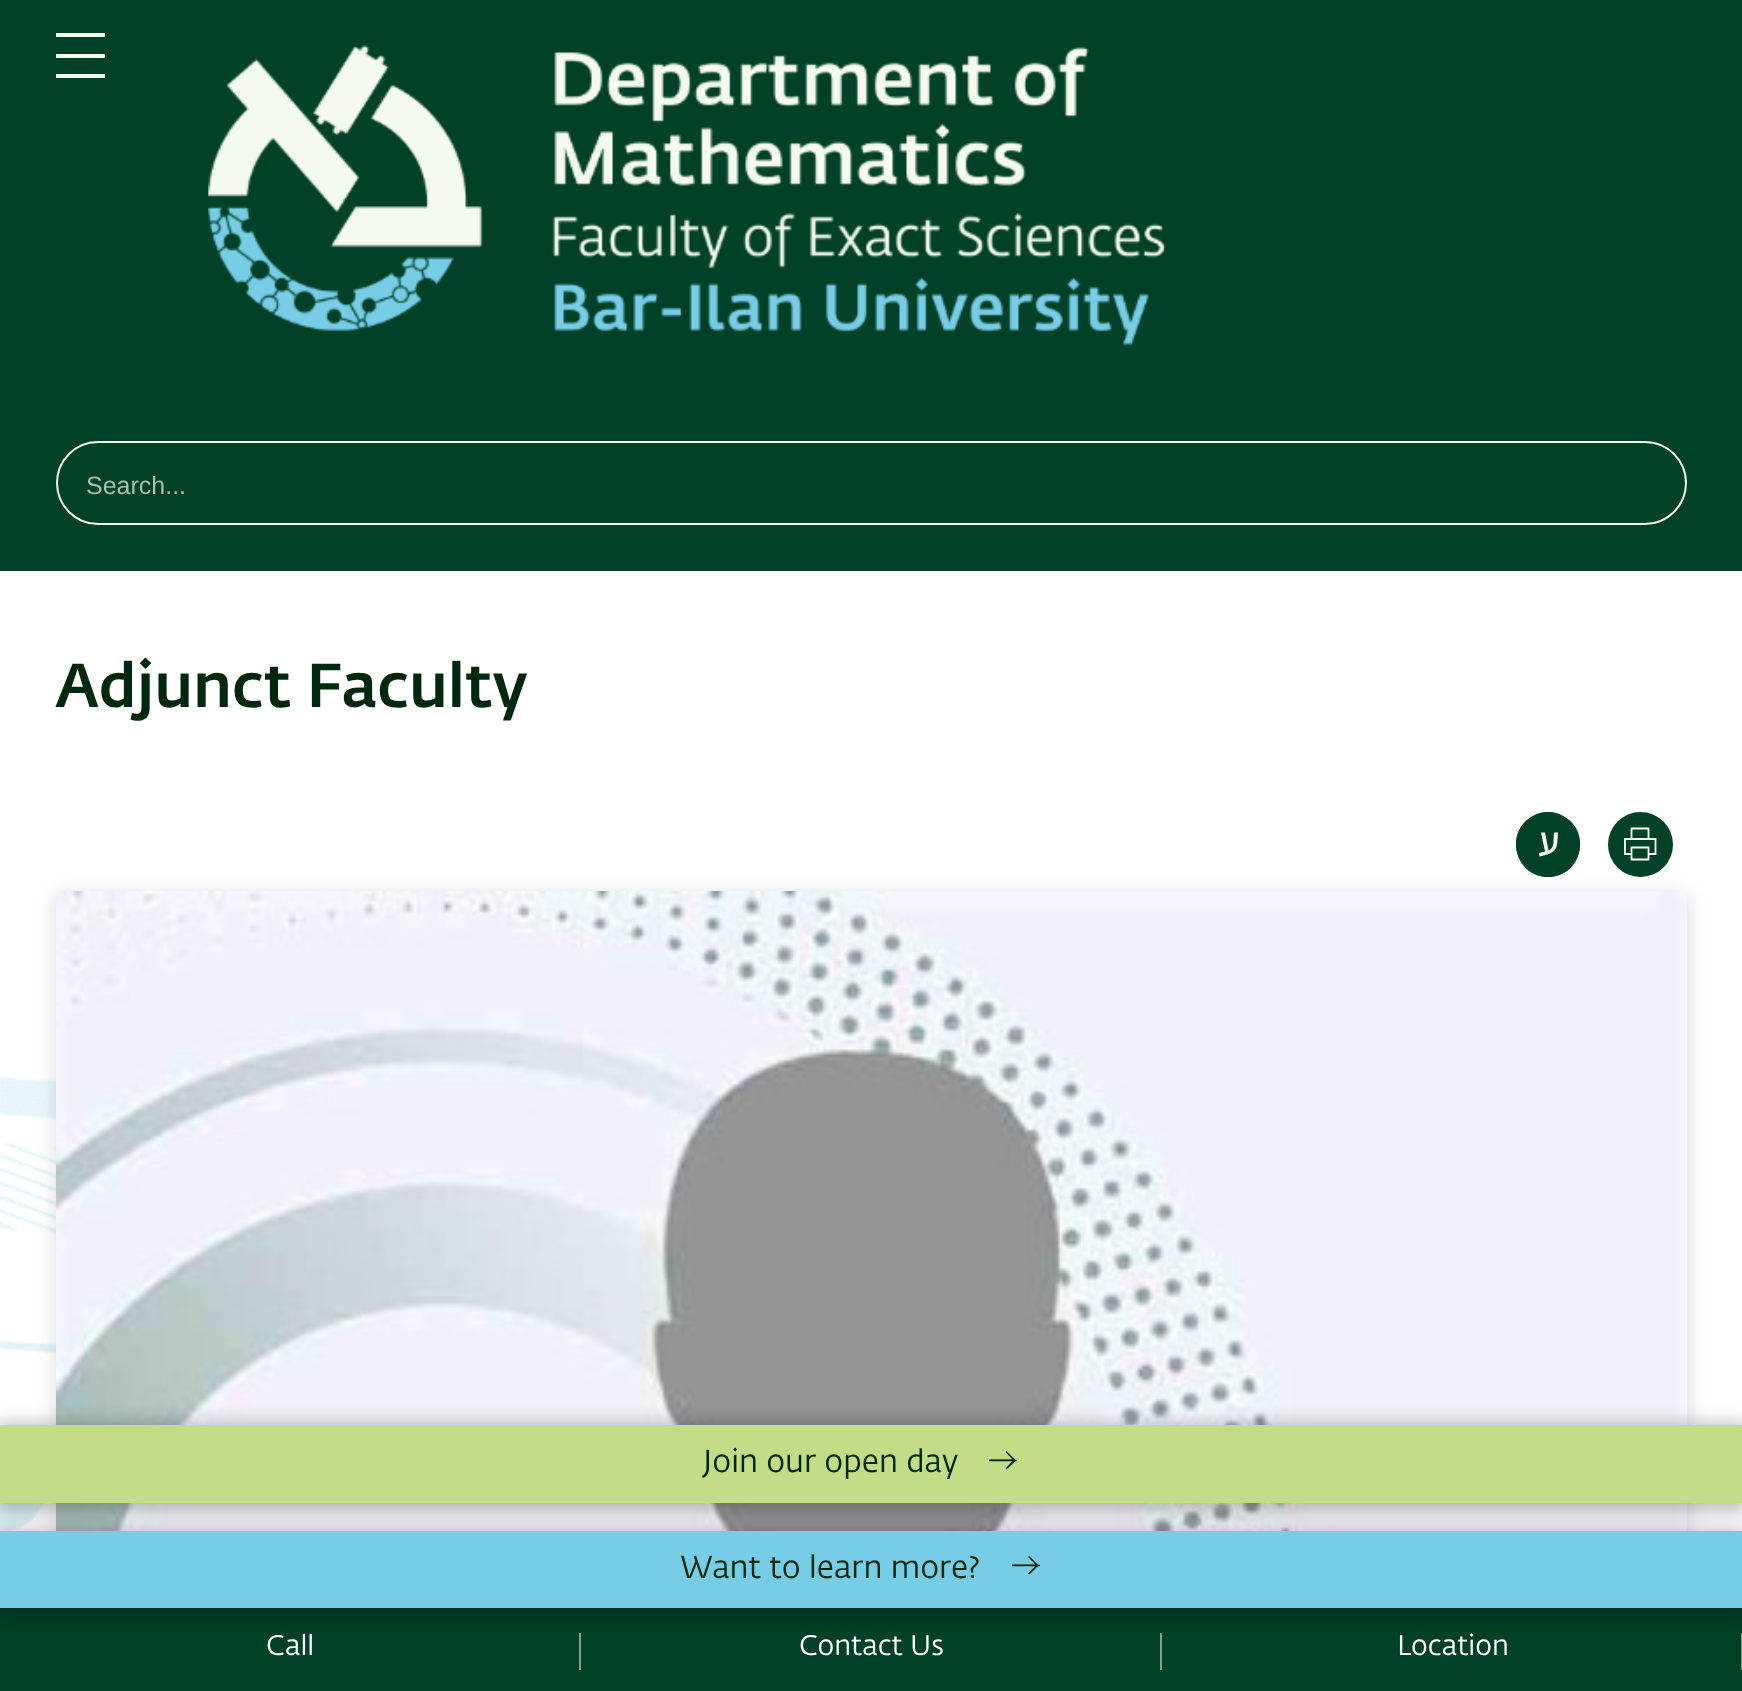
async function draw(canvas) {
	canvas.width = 1742;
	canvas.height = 1691;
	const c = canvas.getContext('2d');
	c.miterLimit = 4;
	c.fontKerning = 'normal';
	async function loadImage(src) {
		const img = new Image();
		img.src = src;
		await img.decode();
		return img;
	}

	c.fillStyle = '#fff';
	c.fillRect(0, 0, 1742, 1691);
	for (const [x, y, w, h, color] of [
		[0, 0, 1742, 571, '#004128'],
		[56, 33, 49, 4, '#f5faf0'],
		[56, 54, 49, 4, '#f5faf0'],
		[56, 74, 49, 4, '#f5faf0'],
	]) {
		c.fillStyle = color;
		c.fillRect(x, y, w, h);
	}
	c.drawImage(await loadImage('img1.png'), 208, 45, 958, 301);
	c.beginPath();
	c.roundRect(57, 442, 1629, 82, 41);
	c.strokeStyle = '#f5faf0';
	c.lineWidth = 2;
	c.stroke();
	c.font = '25px Liberation Sans';
	c.fillStyle = '#a8beb6';
	c.fillText('Search...', 86, 494);
	c.font = '500 61.25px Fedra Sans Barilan';
	c.fillStyle = '#00280f';
	c.fillText('Adjunct Faculty', 56, 707);
	c.fillStyle = '#006937';
	c.beginPath();
	c.roundRect(1516, 812, 64, 65, 32);
	c.fill();
	c.fillStyle = '#004128';
	c.beginPath();
	c.moveTo(1548, 877);
	c.bezierCurveTo(1517, 877, 1504, 835, 1530, 818);
	c.bezierCurveTo(1535, 814, 1542, 812, 1548, 812);
	c.bezierCurveTo(1555, 812, 1561, 814, 1566, 818);
	c.bezierCurveTo(1592, 835, 1580, 877, 1548, 877);
	c.closePath();
	c.fill();
	c.fillStyle = '#f5faf0';
	c.beginPath();
	c.moveTo(1539.5, 856.5);
	c.bezierCurveTo(1558, 853, 1557, 848.5, 1558, 832.5);
	c.lineTo(1554, 832.5);
	c.lineTo(1553.5, 840);
	c.bezierCurveTo(1553.5, 844.5, 1553, 848.5, 1548.5, 850.5);
	c.lineTo(1545, 832.5);
	c.lineTo(1541, 832.5);
	c.lineTo(1545, 851.5);
	c.lineTo(1539, 853);
	c.closePath();
	c.fill();
	c.fillStyle = '#004128';
	c.beginPath();
	c.arc(1640.5, 844.5, 32.5, 0, 2 * Math.PI);
	c.fill();
	c.beginPath();
	c.moveTo(1648.5, 847.5);
	c.lineTo(1648.5, 859.5);
	c.lineTo(1631.5, 859.5);
	c.lineTo(1631.5, 847.5);
	c.closePath();
	c.moveTo(1648.5, 828.5);
	c.lineTo(1648.5, 839);
	c.lineTo(1631.5, 839);
	c.lineTo(1631.5, 828.5);
	c.closePath();
	c.moveTo(1631.5, 854);
	c.lineTo(1625, 854);
	c.lineTo(1625, 839);
	c.lineTo(1655.5, 839);
	c.lineTo(1655.5, 854);
	c.lineTo(1648.5, 854);
	c.strokeStyle = '#fff';
	c.lineWidth = 1.8;
	c.lineCap = 'square';
	c.stroke();
	c.drawImage(await loadImage('img3.png'), 0, 1076, 56, 455);
	c.fillStyle = '#0000001f';
	c.filter = 'blur(9px)';
	c.beginPath();
	c.roundRect(54, 893, 1635, 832, 7);
	c.fill();
	c.filter = 'none';
	c.drawImage(await loadImage('img2.png'), 56, 890, 1631, 641);
	c.fillStyle = '#00000040';
	c.filter = 'blur(9px)';
	c.beginPath();
	c.rect(-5, 1423, 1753, 89);
	c.fill();
	c.filter = 'none';
	c.fillStyle = '#c3dc87';
	c.fillRect(0, 1425, 1742, 78);
	c.font = '31.5px Fedra Sans Barilan';
	c.fillStyle = '#00280f';
	c.fillText('Join our open day', 703, 1472);
	c.save();
	c.beginPath();
	c.rect(989, 1451, 28, 19);
	c.clip();
	c.beginPath();
	c.moveTo(987.5, 1460.5);
	c.lineTo(1022, 1460.5);
	c.strokeStyle = '#00280f';
	c.lineWidth = 1.7;
	c.lineCap = 'butt';
	c.stroke();
	c.restore();
	c.beginPath();
	c.moveTo(1006.5, 1451);
	c.lineTo(1005.5, 1452);
	c.lineTo(1012.5, 1459.5);
	c.lineTo(989.5, 1459.5);
	c.lineTo(989.5, 1461);
	c.lineTo(1012.5, 1461);
	c.lineTo(1005.5, 1468.5);
	c.lineTo(1006.5, 1469.5);
	c.lineTo(1016, 1460.5);
	c.closePath();
	c.fill();
	for (const [x, y, w, h, color] of [
		[0, 1608, 1742, 83, '#004128'],
		[579, 1633, 2, 37, '#80a094'],
		[1160, 1633, 2, 37, '#80a094'],
		[1741, 1633, 1, 37, '#80a094'],
	]) {
		c.fillStyle = color;
		c.fillRect(x, y, w, h);
	}
	c.fillStyle = '#00000040';
	c.filter = 'blur(9px)';
	c.beginPath();
	c.rect(-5, 1530, 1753, 87);
	c.fill();
	c.filter = 'none';
	c.fillStyle = '#78cde6';
	c.fillRect(0, 1531, 1742, 77);
	c.fillStyle = '#00280f';
	c.fillText('Want to learn more?', 680, 1578);
	c.save();
	c.beginPath();
	c.rect(1012, 1556, 28, 19);
	c.clip();
	c.beginPath();
	c.moveTo(1010.5, 1565.5);
	c.lineTo(1044.5, 1565.5);
	c.strokeStyle = '#00280f';
	c.lineWidth = 1.7;
	c.lineCap = 'butt';
	c.stroke();
	c.restore();
	c.beginPath();
	c.moveTo(1029.5, 1556);
	c.lineTo(1028, 1557);
	c.lineTo(1035.5, 1564.5);
	c.lineTo(1012.5, 1564.5);
	c.lineTo(1012.5, 1566);
	c.lineTo(1035.5, 1566);
	c.lineTo(1028, 1573.5);
	c.lineTo(1029.5, 1574.5);
	c.lineTo(1038.5, 1565.5);
	c.closePath();
	c.fill();
	c.font = '28px Fedra Sans Barilan';
	c.fillStyle = '#fff';
	for (const [text, x, y] of [
		['Call', 266, 1655],
		['Contact Us', 799, 1655],
		['Location', 1397, 1655],
	]) {
		c.fillText(text, x, y);
	}
}

draw(document.querySelector('canvas'));
